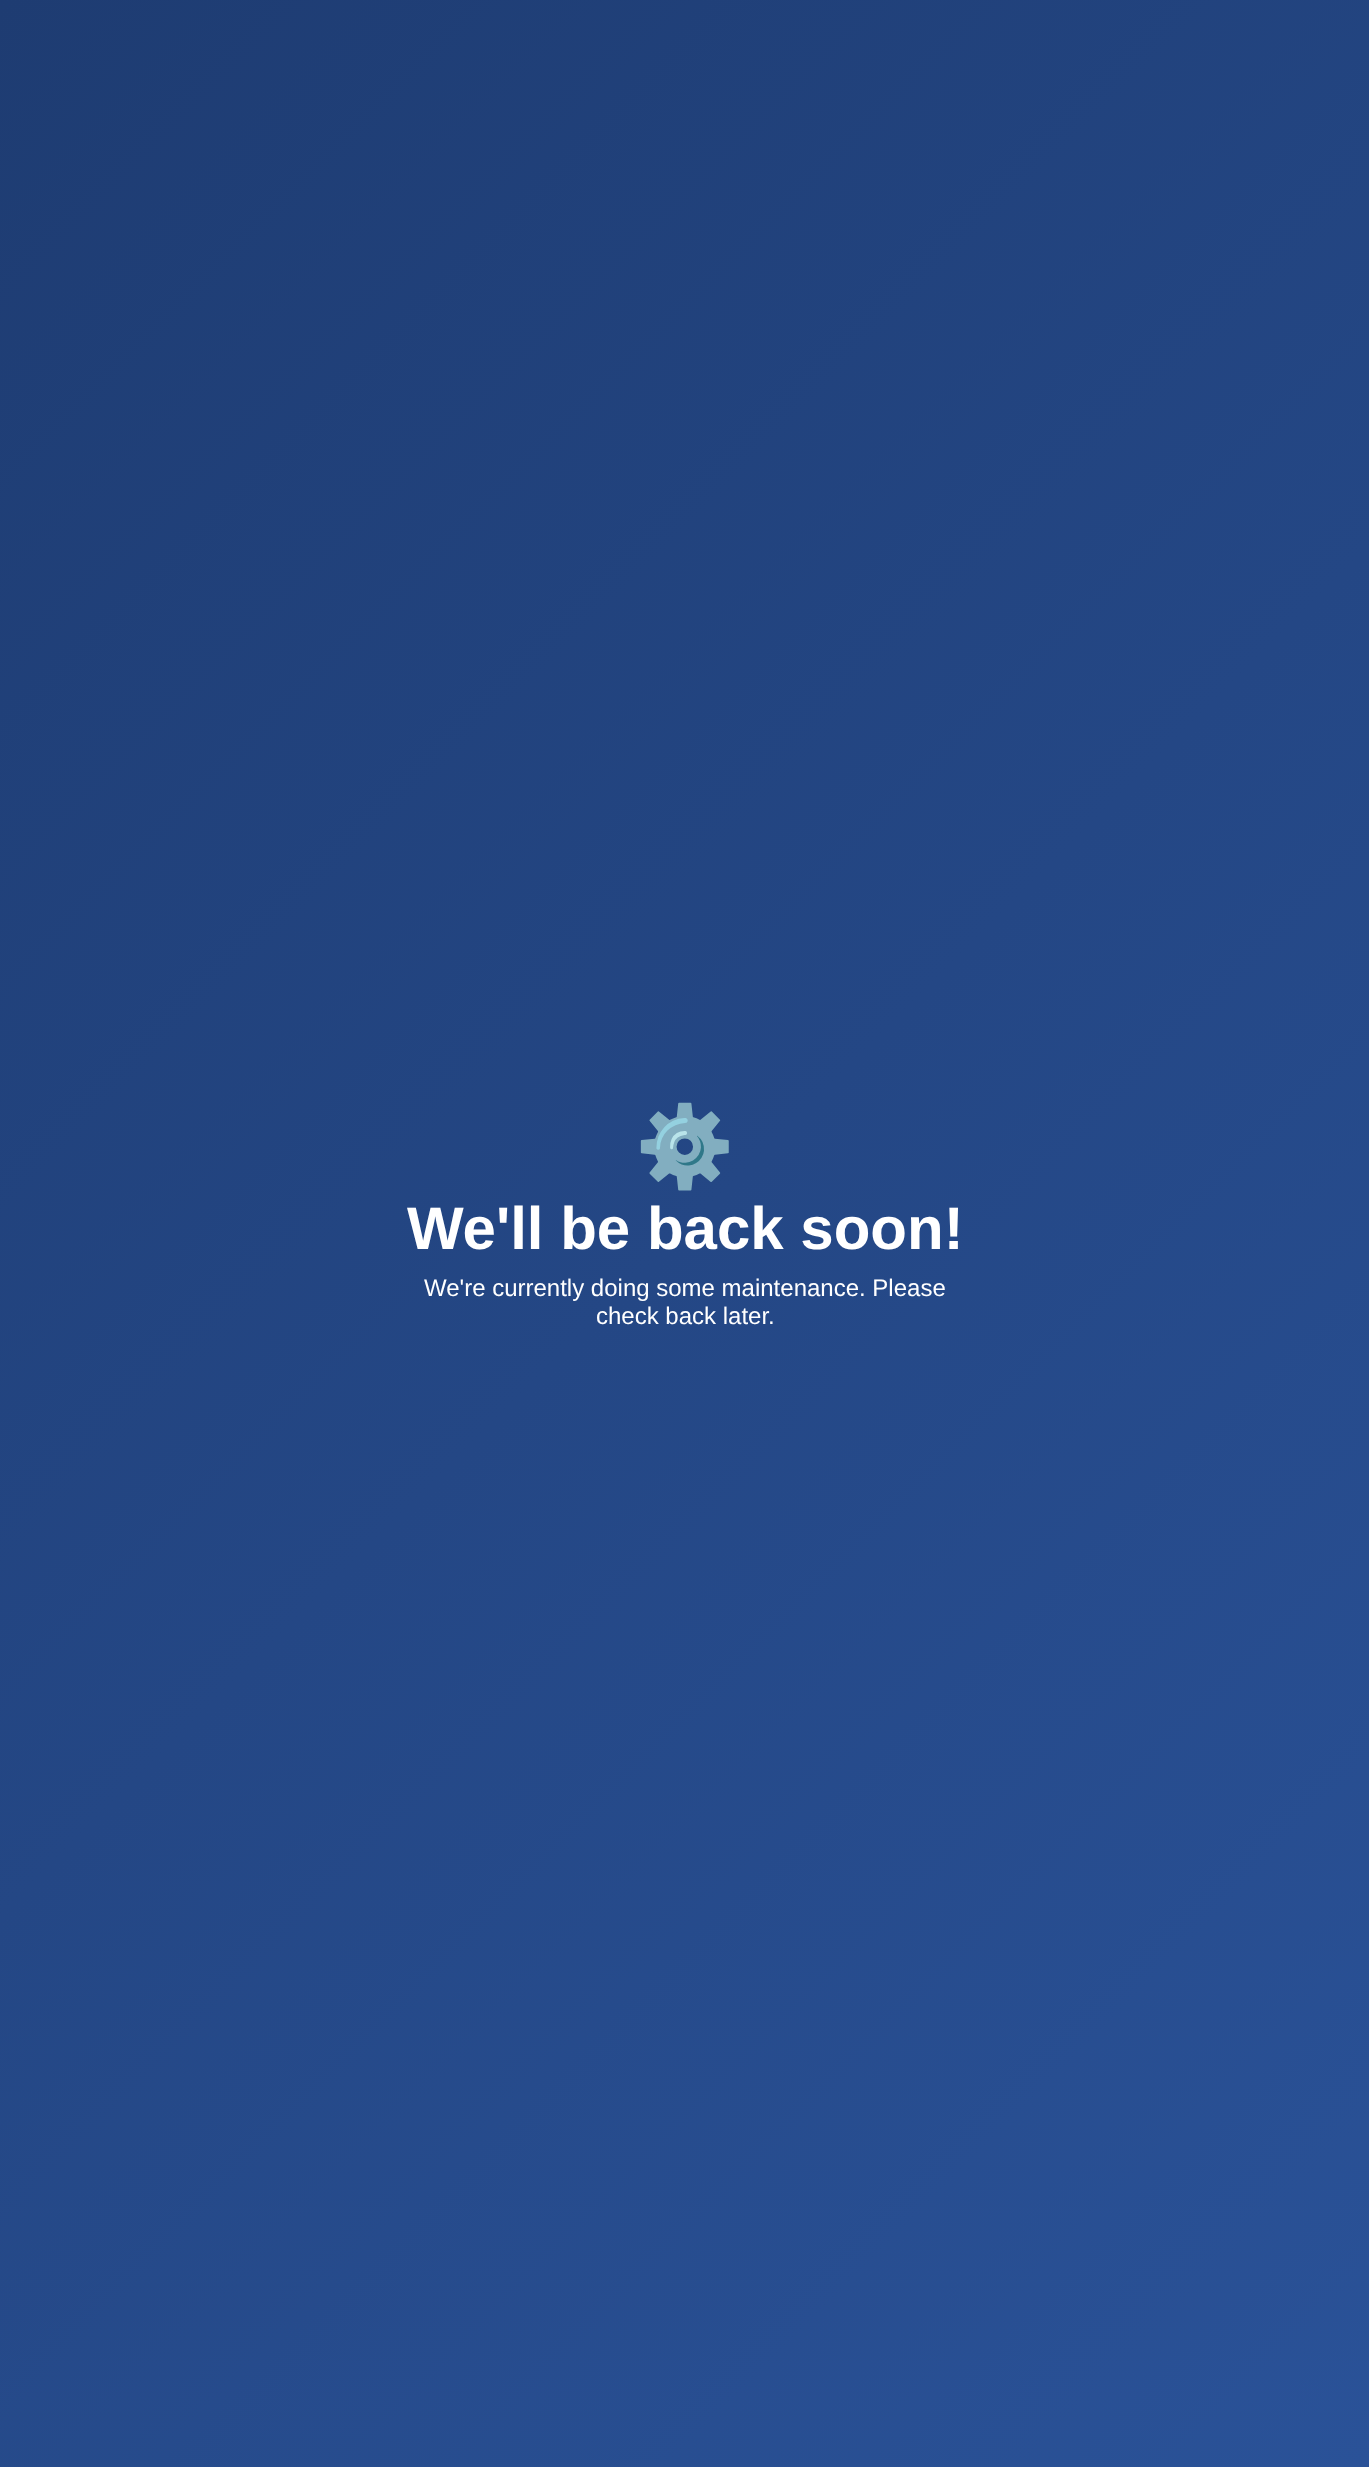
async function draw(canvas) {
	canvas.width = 1369;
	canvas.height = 2467;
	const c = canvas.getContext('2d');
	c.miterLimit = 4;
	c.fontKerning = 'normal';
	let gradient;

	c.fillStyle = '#fff';
	c.fillRect(0, 0, 1369, 2467);
	gradient = c.createLinearGradient(-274, 274, 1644, 2193);
	gradient.addColorStop(0, '#1e3c72');
	gradient.addColorStop(1, '#2a5298');
	c.fillStyle = gradient;
	c.fillRect(0, 0, 1369, 2467);
	c.font = '80px Noto Color Emoji';
	c.fillStyle = '#fff';
	c.fillText('⚙️', 635, 1174);
	c.font = 'bold 60px Liberation Sans';
	c.fillText('We\'ll be back soon!', 407, 1249);
	c.font = '24px Liberation Sans';
	c.fillText('We\'re currently doing some maintenance. Please', 424, 1296);
	c.fillText('check back later.', 596, 1324);
}

draw(document.querySelector('canvas'));
